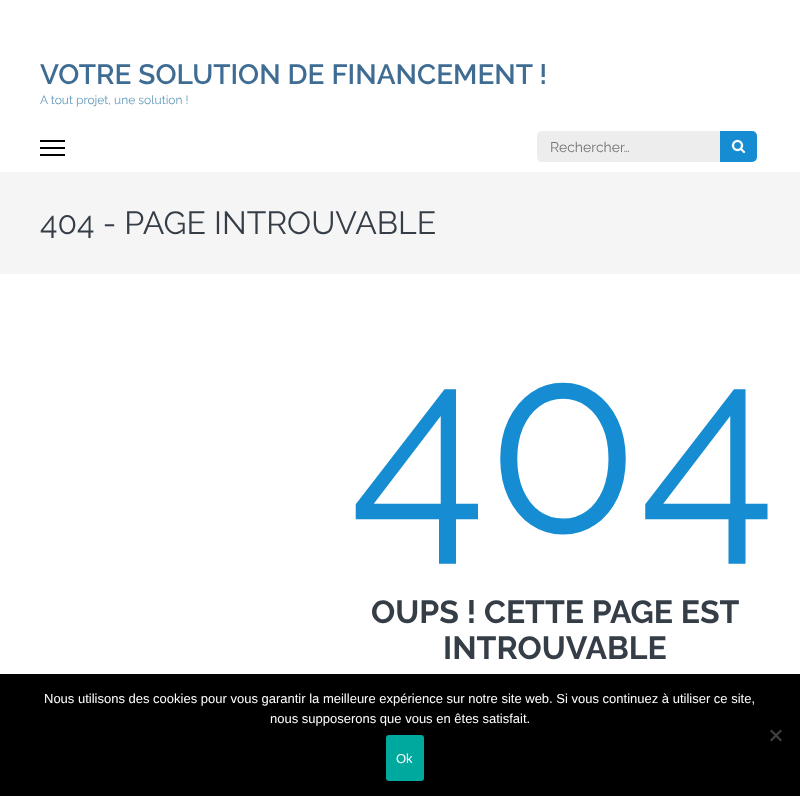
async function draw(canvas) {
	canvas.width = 800;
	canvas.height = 796;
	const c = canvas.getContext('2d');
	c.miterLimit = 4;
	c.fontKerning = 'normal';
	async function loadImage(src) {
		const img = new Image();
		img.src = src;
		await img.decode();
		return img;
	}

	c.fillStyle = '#fff';
	c.fillRect(0, 0, 800, 796);
	c.font = '600 28px Raleway';
	c.fillStyle = '#3f6c92';
	c.fillText('VOTRE SOLUTION DE FINANCEMENT !', 40, 84);
	c.font = '12px Raleway';
	c.fillStyle = '#659aba';
	c.fillText('A tout projet, une solution !', 40, 104);
	for (const [x, y, w, h, color] of [
		[40, 140, 25, 2, '#000'],
		[40, 147, 25, 2, '#000'],
		[40, 154, 25, 2, '#000'],
	]) {
		c.fillStyle = color;
		c.fillRect(x, y, w, h);
	}
	c.fillStyle = '#ededed';
	c.beginPath();
	c.roundRect(537, 131, 220, 31, 5);
	c.fill();
	c.font = '14px Raleway';
	c.fillStyle = '#757575';
	c.fillText('Rechercher…', 550, 152);
	c.fillStyle = '#168dd2';
	c.beginPath();
	c.roundRect(720, 131, 37, 31, [0, 5, 5, 0]);
	c.fill();
	c.drawImage(await loadImage('img1.png'), 731, 139, 15, 15);
	c.fillStyle = '#f5f5f5';
	c.fillRect(0, 172, 800, 102);
	c.font = '32px Raleway';
	c.fillStyle = '#353d47';
	c.fillText('404 - PAGE INTROUVABLE', 40, 234);
	c.font = '250px Raleway';
	c.fillStyle = '#168dd2';
	c.fillText('404', 350, 532);
	c.font = 'bold 32px Raleway';
	c.fillStyle = '#353d47';
	c.fillText('OUPS ! CETTE PAGE EST', 371, 623);
	c.fillText('INTROUVABLE', 443, 659);
	c.fillStyle = '#000';
	c.fillRect(0, 674, 800, 122);
	c.font = '13px Liberation Sans';
	c.fillStyle = '#fff';
	c.fillText('Nous utilisons des cookies pour vous garantir la meilleure expérience sur notre site web. Si vous continuez à utiliser ce site,', 44, 703);
	c.fillText('nous supposerons que vous en êtes satisfait.', 270, 723);
	c.fillStyle = '#404040';
	c.beginPath();
	c.moveTo(780.5, 729.5);
	c.lineTo(782, 731);
	c.lineTo(771.5, 741.5);
	c.lineTo(770, 740);
	c.closePath();
	c.fill();
	c.beginPath();
	c.moveTo(770, 731);
	c.lineTo(771.5, 729.5);
	c.lineTo(782, 740);
	c.lineTo(780.5, 741.5);
	c.closePath();
	c.fill();
	c.fillStyle = '#00a99d';
	c.beginPath();
	c.roundRect(386, 735, 38, 46, 3);
	c.fill();
	c.fillStyle = '#fff';
	c.fillText('Ok', 396, 763);
}

draw(document.querySelector('canvas'));
